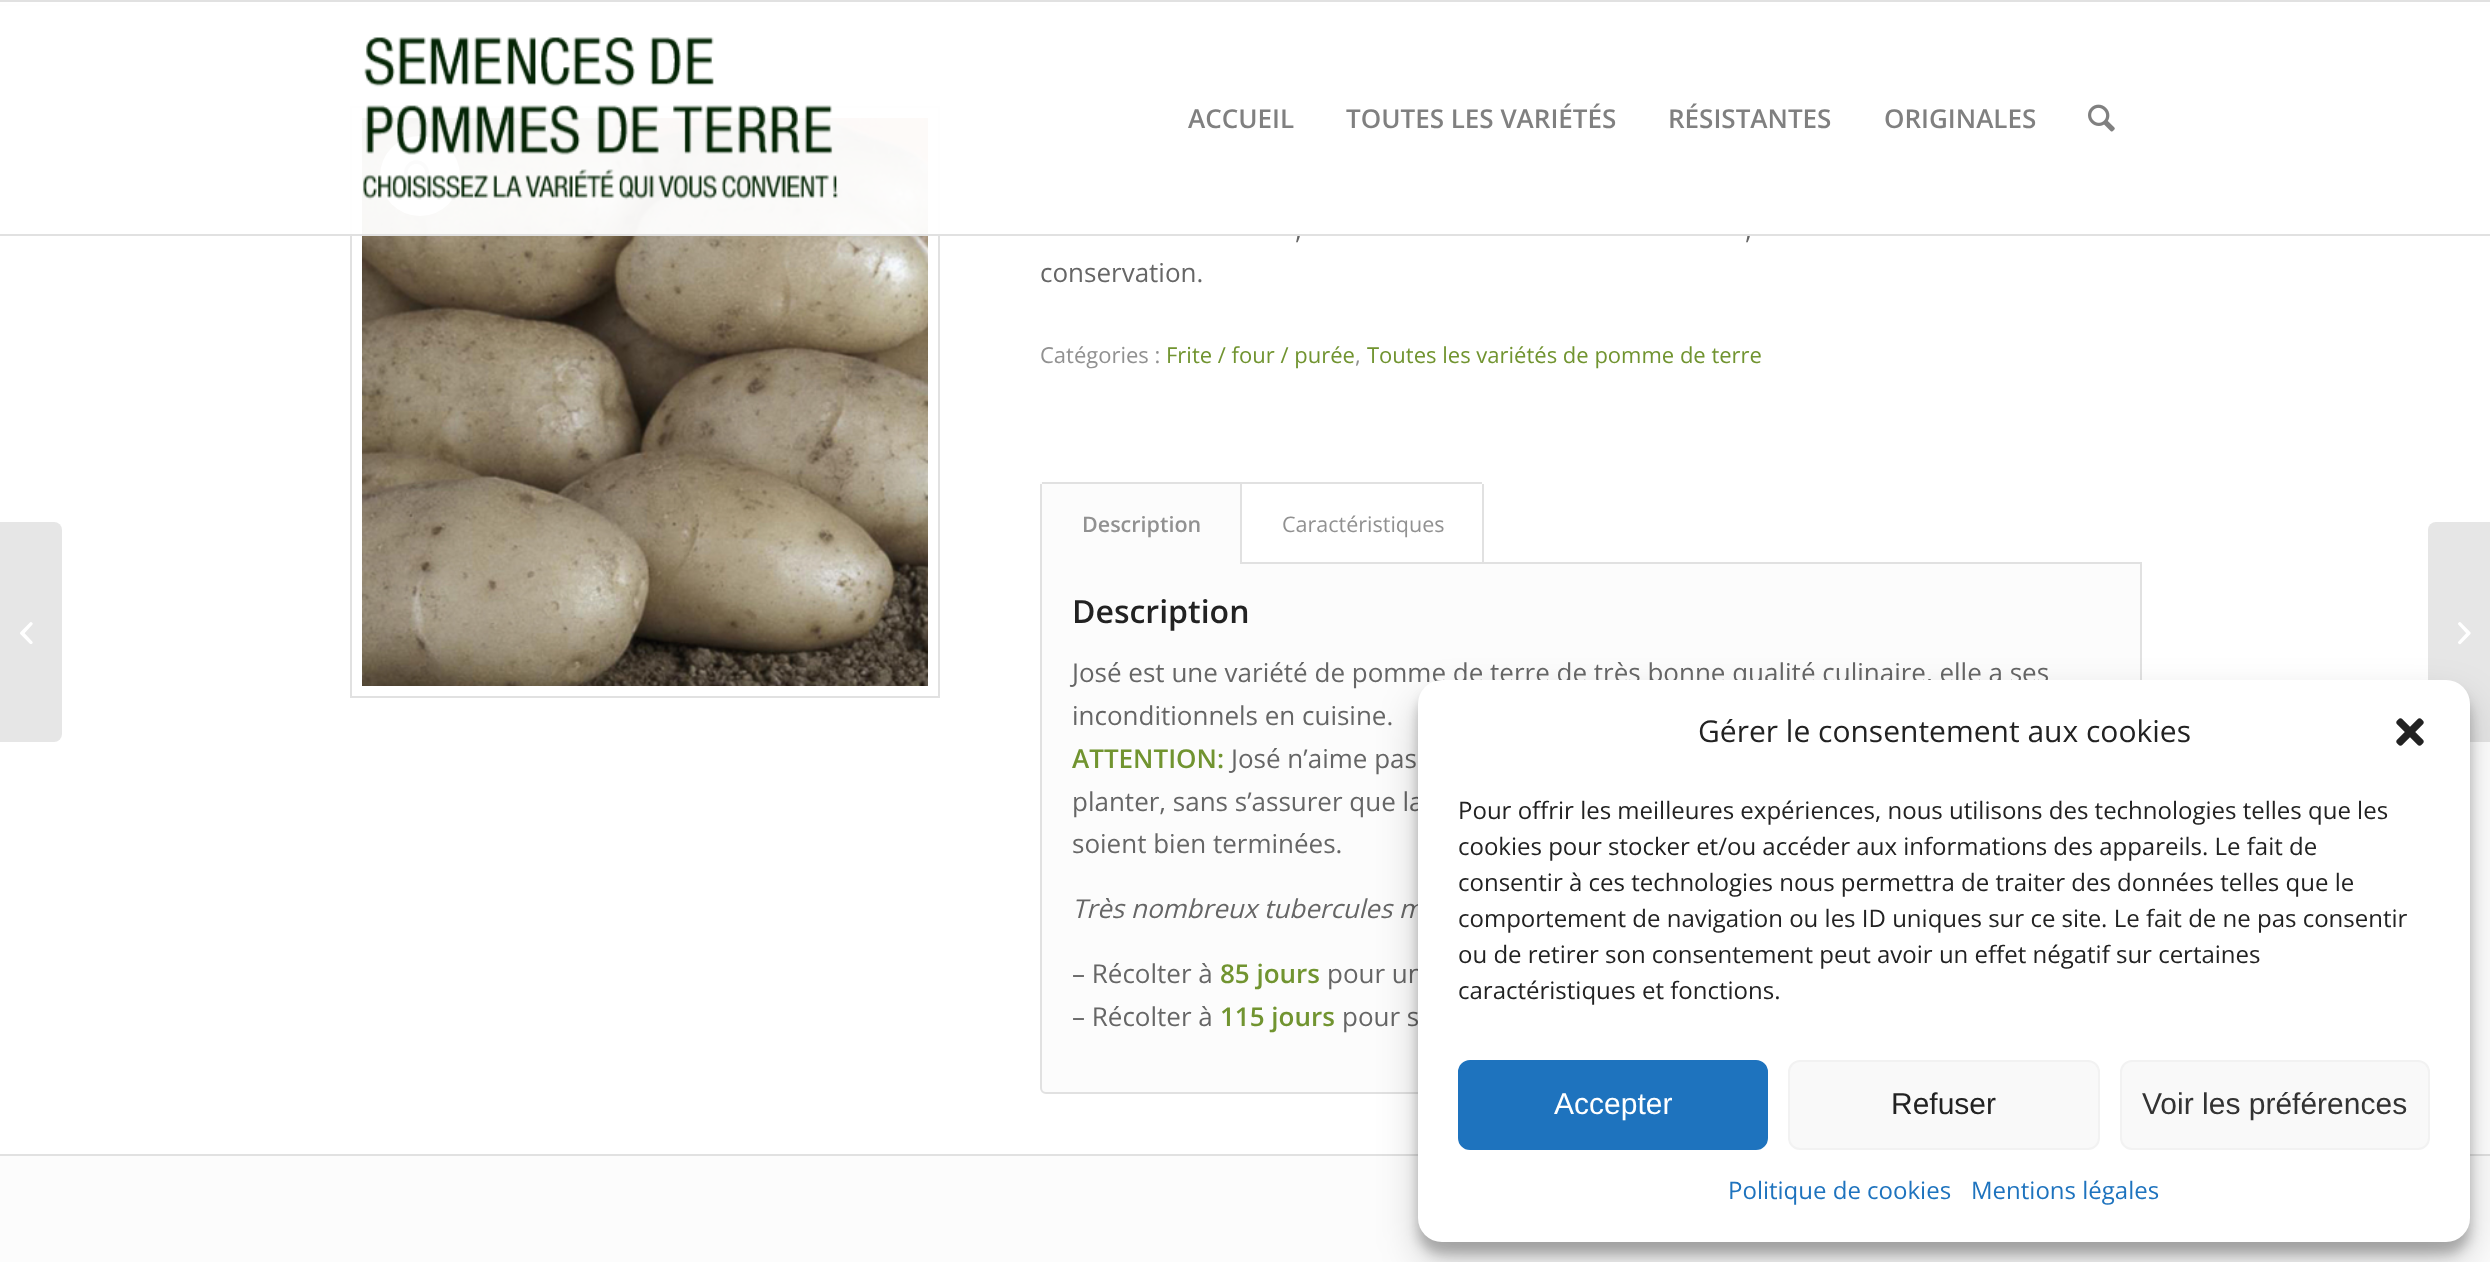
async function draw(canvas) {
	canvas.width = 2490;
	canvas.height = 1262;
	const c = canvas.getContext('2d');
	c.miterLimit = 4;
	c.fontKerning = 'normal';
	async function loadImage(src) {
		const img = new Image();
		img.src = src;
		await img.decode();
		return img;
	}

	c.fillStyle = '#fff';
	c.fillRect(0, 0, 2490, 1262);
	c.fillStyle = '#fcfcfc';
	c.fillRect(0, 2, 2490, 2);
	c.fillStyle = '#e1e1e1';
	c.fillRect(0, 4, 2490, 2);
	c.strokeStyle = '#e1e1e1';
	c.lineWidth = 2;
	c.strokeRect(351, 107, 588, 590);
	c.drawImage(await loadImage('img4.png'), 362, 118, 566, 568);
	c.fillStyle = '#fff';
	c.beginPath();
	c.arc(420, 176, 40, 0, 2 * Math.PI);
	c.fill();
	c.drawImage(await loadImage('img5.png'), 404, 160, 32, 32);
	for (const [x, y, w, h, color] of [
		[0, 2, 2490, 232, '#fffffff2'],
		[0, 0, 2490, 2, '#e1e1e1'],
		[0, 234, 2490, 2, '#e1e1e1'],
	]) {
		c.fillStyle = color;
		c.fillRect(x, y, w, h);
	}
	c.drawImage(await loadImage('img1.png'), 363, 37, 475, 163);
	c.font = '600 26px Open Sans';
	c.fillStyle = '#808080';
	for (const [text, x, y] of [
		['ACCUEIL', 1188, 128],
		['TOUTES LES VARIÉTÉS', 1346, 128],
		['RÉSISTANTES', 1668, 128],
		['ORIGINALES', 1884, 128],
	]) {
		c.fillText(text, x, y);
	}
	c.drawImage(await loadImage('img2.png'), 2088, 104, 27, 28);
	c.fillStyle = '#e6e6e6';
	c.beginPath();
	c.roundRect(0, 522, 62, 220, [0, 8, 8, 0]);
	c.fill();
	c.drawImage(await loadImage('img3.png'), 20, 622, 13, 22);
	c.font = '26px Open Sans';
	c.fillStyle = '#666';
	for (const [text, x, y] of [
		[',', 1295, 239],
		[',', 1745, 239],
		['conservation.', 1040, 282],
	]) {
		c.fillText(text, x, y);
	}
	c.font = '22px Open Sans';
	c.fillStyle = '#919191';
	c.fillText('Catégories :', 1040, 363);
	c.fillStyle = '#719430';
	c.fillText('Frite / four / purée', 1166, 363);
	c.fillStyle = '#919191';
	c.fillText(',', 1355, 363);
	c.fillStyle = '#719430';
	c.fillText('Toutes les variétés de pomme de terre', 1367, 363);
	c.fillStyle = '#fcfcfc';
	c.beginPath();
	c.roundRect(1041, 563, 1100, 530, [0, 0, 5, 5]);
	c.fill();
	c.stroke();
	for (const [x, y, w, h, color] of [
		[1040, 482, 200, 82, '#fcfcfc'],
		[1240, 482, 242, 2, '#e1e1e1'],
		[1042, 482, 200, 2, '#e1e1e1'],
		[1240, 482, 2, 82, '#e1e1e1'],
		[1040, 484, 2, 80, '#e1e1e1'],
	]) {
		c.fillStyle = color;
		c.fillRect(x, y, w, h);
	}
	c.font = '600 21.5px Open Sans';
	c.fillStyle = '#919191';
	c.fillText('Description', 1082, 532);
	c.fillStyle = '#e1e1e1';
	c.fillRect(1482, 484, 2, 80);
	c.font = '21.5px Open Sans';
	c.fillStyle = '#919191';
	c.fillText('Caractéristiques', 1282, 532);
	c.font = '600 32px Open Sans';
	c.fillStyle = '#222';
	c.fillText('Description', 1072, 623);
	c.font = '26px Open Sans';
	c.fillStyle = '#666';
	c.fillText('José est une variété de pomme de terre de très bonne qualité culinaire, elle a ses', 1072, 682);
	c.fillText('inconditionnels en cuisine.', 1072, 725);
	c.font = '600 26px Open Sans';
	c.fillStyle = '#719430';
	c.fillText('ATTENTION:', 1072, 768);
	c.font = '26px Open Sans';
	c.fillStyle = '#666';
	for (const [text, x, y] of [
		['José n’aime pas', 1231, 768],
		['planter, sans s’assurer que la', 1072, 811],
		['soient bien terminées.', 1072, 853],
	]) {
		c.fillText(text, x, y);
	}
	c.font = 'italic 26px Open Sans';
	c.fillText('Très nombreux tubercules m', 1072, 918);
	c.font = '26px Open Sans';
	c.fillText('– Récolter à', 1072, 983);
	c.font = '600 26px Open Sans';
	c.fillStyle = '#719430';
	c.fillText('85 jours', 1220, 983);
	c.font = '26px Open Sans';
	c.fillStyle = '#666';
	c.fillText('pour un', 1327, 983);
	c.fillText('– Récolter à', 1072, 1026);
	c.font = '600 26px Open Sans';
	c.fillStyle = '#719430';
	c.fillText('115 jours', 1220, 1026);
	c.font = '26px Open Sans';
	c.fillStyle = '#666';
	c.fillText('pour s', 1342, 1026);
	c.fillStyle = '#fcfcfc';
	c.fillRect(0, 1156, 2490, 106);
	c.fillStyle = '#e1e1e1';
	c.fillRect(0, 1154, 2490, 2);
	c.fillStyle = '#e6e6e6';
	c.beginPath();
	c.roundRect(2428, 522, 62, 220, [8, 0, 0, 8]);
	c.fill();
	c.drawImage(await loadImage('img6.png'), 2458, 622, 13, 23);
	c.fillStyle = '#0000003b';
	c.filter = 'blur(6px)';
	c.beginPath();
	c.roundRect(1418, 692, 1052, 562, 24);
	c.fill();
	c.filter = 'none';
	c.fillStyle = '#00000030';
	c.filter = 'blur(20px)';
	c.beginPath();
	c.roundRect(1418, 700, 1052, 562, 24);
	c.fill();
	c.filter = 'none';
	c.fillStyle = '#fff';
	c.beginPath();
	c.roundRect(1418, 680, 1052, 562, 24);
	c.fill();
	c.font = '30px Open Sans';
	c.fillStyle = '#222';
	c.fillText('Gérer le consentement aux cookies', 1698, 742);
	c.drawImage(await loadImage('img7.png'), 2396, 718, 28, 28);
	c.font = '24px Open Sans';
	for (const [text, x, y] of [
		['Pour offrir les meilleures expériences, nous utilisons des technologies telles que les', 1458, 819],
		['cookies pour stocker et/ou accéder aux informations des appareils. Le fait de', 1458, 855],
		['consentir à ces technologies nous permettra de traiter des données telles que le', 1458, 891],
		['comportement de navigation ou les ID uniques sur ce site. Le fait de ne pas consentir', 1458, 927],
		['ou de retirer son consentement peut avoir un effet négatif sur certaines', 1458, 963],
		['caractéristiques et fonctions.', 1458, 999],
	]) {
		c.fillText(text, x, y);
	}
	c.fillStyle = '#1e73be';
	c.beginPath();
	c.roundRect(1459, 1061, 308, 88, 11);
	c.fill();
	c.strokeStyle = '#1e73be';
	c.stroke();
	c.font = '30px Liberation Sans';
	c.fillStyle = '#fff';
	c.fillText('Accepter', 1554, 1114);
	c.fillStyle = '#f9f9f9';
	c.beginPath();
	c.roundRect(1789, 1061, 310, 88, 11);
	c.fill();
	c.strokeStyle = '#f2f2f2';
	c.stroke();
	c.fillStyle = '#222';
	c.fillText('Refuser', 1891, 1114);
	c.fillStyle = '#f9f9f9';
	c.beginPath();
	c.roundRect(2121, 1061, 308, 88, 11);
	c.fill();
	c.stroke();
	c.fillStyle = '#333';
	c.fillText('Voir les préférences', 2142, 1114);
	c.font = '24px Open Sans';
	c.fillStyle = '#1e73be';
	c.fillText('Politique de cookies', 1728, 1199);
	c.fillText('Mentions légales', 1971, 1199);
}

draw(document.querySelector('canvas'));
